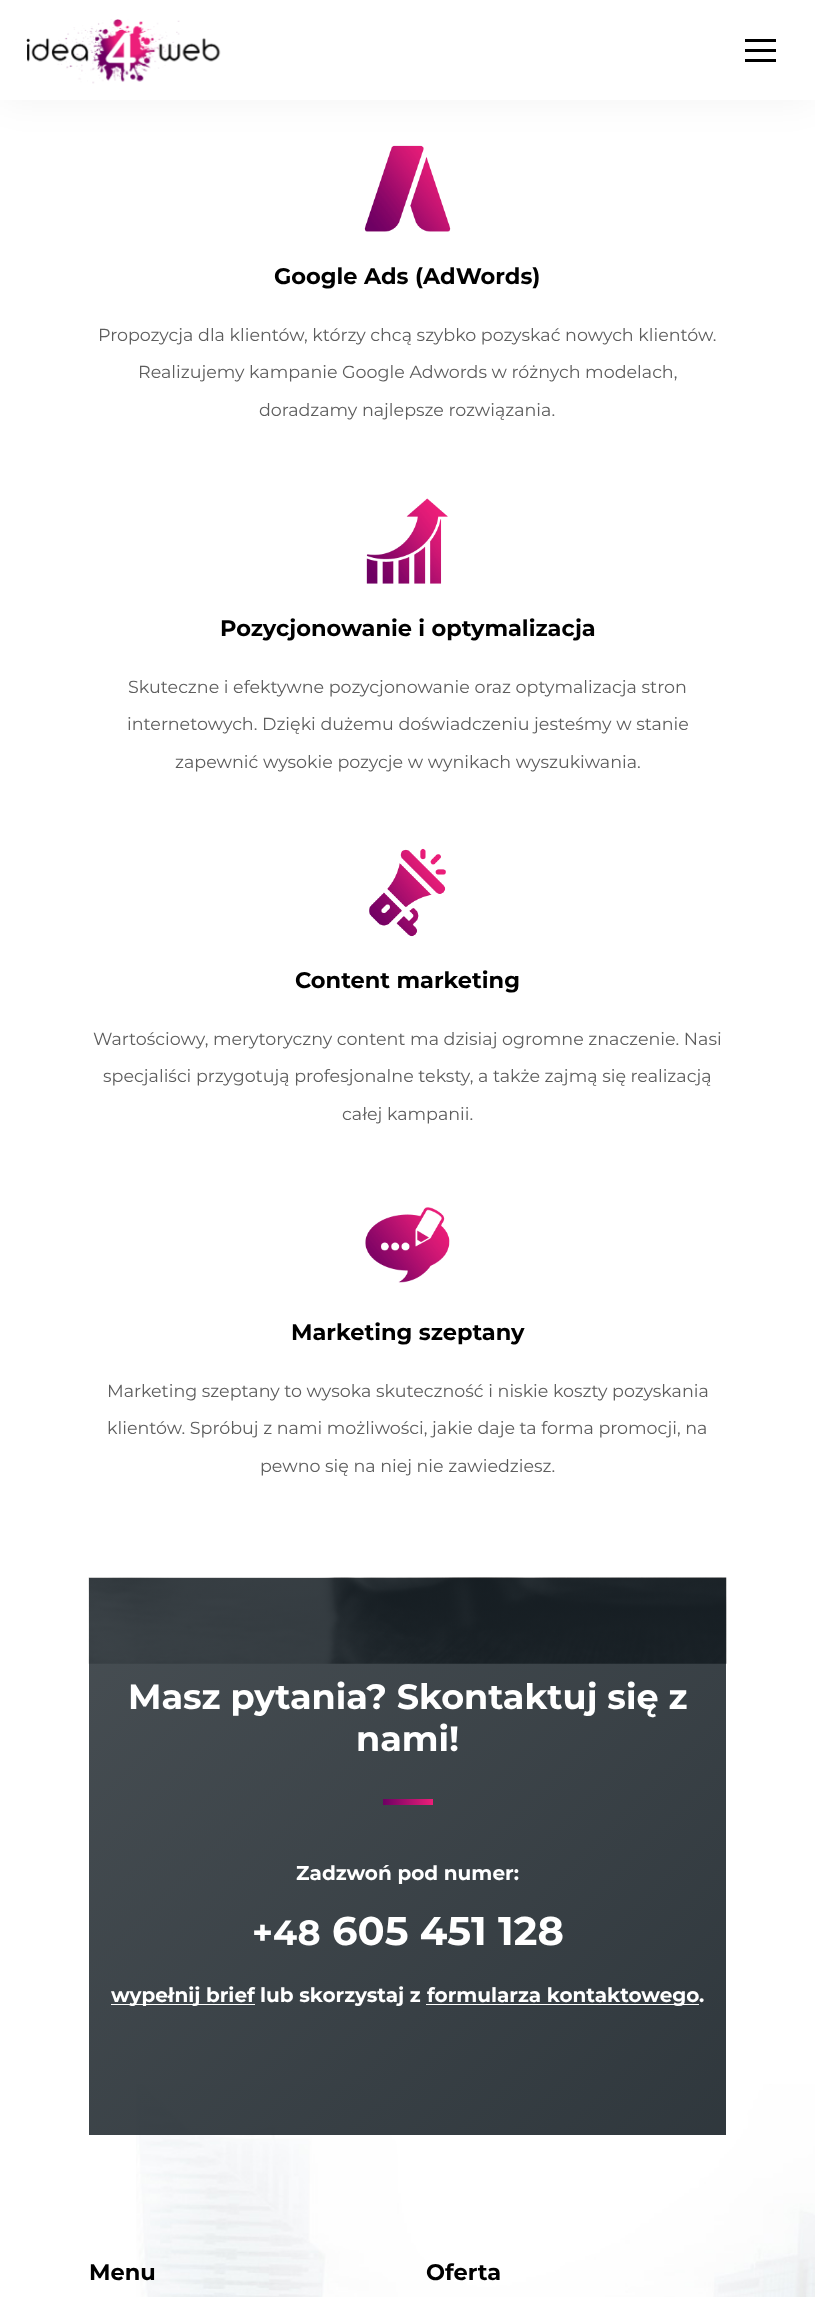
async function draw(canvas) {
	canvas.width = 815;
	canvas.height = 2297;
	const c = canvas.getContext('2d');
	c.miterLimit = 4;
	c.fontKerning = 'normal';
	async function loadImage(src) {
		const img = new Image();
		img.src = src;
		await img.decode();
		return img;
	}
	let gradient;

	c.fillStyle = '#fff';
	c.fillRect(0, 0, 815, 2297);
	c.drawImage(await loadImage('img1.png'), 136, 2084, 679, 213);
	c.drawImage(await loadImage('img3.png'), 364, 145, 87, 87);
	c.fillStyle = '#0000000d';
	c.filter = 'blur(19px)';
	c.beginPath();
	c.rect(0, 0, 815, 100);
	c.fill();
	c.filter = 'none';
	c.fillStyle = '#fff';
	c.fillRect(0, 0, 815, 100);
	c.drawImage(await loadImage('img2.png'), 26, 19, 195, 65);
	for (const [x, y, w, h, color] of [
		[745, 39, 31, 3, '#000'],
		[745, 49, 31, 3, '#000'],
		[745, 59, 31, 3, '#000'],
	]) {
		c.fillStyle = color;
		c.fillRect(x, y, w, h);
	}
	c.font = 'bold 22.5px Montserrat';
	c.fillText('Google Ads (AdWords)', 274, 284);
	c.font = '17.5px Montserrat';
	c.fillStyle = '#5d5d5d';
	for (const [text, x, y] of [
		['Propozycja dla klientów, którzy chcą szybko pozyskać nowych klientów.', 98, 341],
		['Realizujemy kampanie Google Adwords w różnych modelach,', 138, 378],
		['doradzamy najlepsze rozwiązania.', 259, 416],
	]) {
		c.fillText(text, x, y);
	}
	c.drawImage(await loadImage('img4.png'), 366, 498, 82, 86);
	c.font = 'bold 22.5px Montserrat';
	c.fillStyle = '#000';
	c.fillText('Pozycjonowanie i optymalizacja', 220, 636);
	c.font = '17.5px Montserrat';
	c.fillStyle = '#5d5d5d';
	for (const [text, x, y] of [
		['Skuteczne i efektywne pozycjonowanie oraz optymalizacja stron', 128, 693],
		['internetowych. Dzięki dużemu doświadczeniu jesteśmy w stanie', 127, 730],
		['zapewnić wysokie pozycje w wynikach wyszukiwania.', 175, 768],
	]) {
		c.fillText(text, x, y);
	}
	c.drawImage(await loadImage('img5.png'), 369, 848, 77, 89);
	c.font = 'bold 22.5px Montserrat';
	c.fillStyle = '#000';
	c.fillText('Content marketing', 295, 988);
	c.font = '17.5px Montserrat';
	c.fillStyle = '#5d5d5d';
	for (const [text, x, y] of [
		['Wartościowy, merytoryczny content ma dzisiaj ogromne znaczenie. Nasi', 93, 1045],
		['specjaliści przygotują profesjonalne teksty, a także zajmą się realizacją', 103, 1082],
		['całej kampanii.', 342, 1120],
	]) {
		c.fillText(text, x, y);
	}
	c.drawImage(await loadImage('img6.png'), 365, 1207, 85, 76);
	c.font = 'bold 22.5px Montserrat';
	c.fillStyle = '#000';
	c.fillText('Marketing szeptany', 291, 1340);
	c.font = '17.5px Montserrat';
	c.fillStyle = '#5d5d5d';
	for (const [text, x, y] of [
		['Marketing szeptany to wysoka skuteczność i niskie koszty pozyskania', 107, 1397],
		['klientów. Spróbuj z nami możliwości, jakie daje ta forma promocji, na', 107, 1434],
		['pewno się na niej nie zawiedziesz.', 260, 1472],
	]) {
		c.fillText(text, x, y);
	}
	c.drawImage(await loadImage('img7.png'), 88, 1577, 639, 87);
	gradient = c.createLinearGradient(109, 1558, 706, 2155);
	gradient.addColorStop(0, '#192228cc');
	gradient.addColorStop(1, '#192228e6');
	c.fillStyle = gradient;
	c.fillRect(89, 1578, 637, 557);
	c.font = 'bold 35px Montserrat';
	c.fillStyle = '#fff';
	c.fillText('Masz pytania? Skontaktuj się z', 128, 1709);
	c.fillText('nami!', 356, 1751);
	gradient = c.createLinearGradient(383, 1802, 433, 1802);
	gradient.addColorStop(0, '#6d0063');
	gradient.addColorStop(1, '#ed1e79');
	c.fillStyle = gradient;
	c.fillRect(383, 1799, 50, 6);
	c.font = 'bold 20px Montserrat';
	c.fillStyle = '#fff';
	c.fillText('Zadzwoń pod numer:', 296, 1880);
	c.font = 'bold 35px Montserrat';
	c.fillText('+48', 252, 1945);
	c.font = 'bold 40px Montserrat';
	c.fillText('605 451 128', 332, 1945);
	c.fillRect(111, 2004, 144, 1);
	c.font = 'bold 20px Montserrat';
	c.fillText('wypełnij brief', 111, 2002);
	c.fillText('lub skorzystaj z', 260, 2002);
	c.fillRect(426, 2004, 273, 1);
	c.fillText('formularza kontaktowego', 427, 2002);
	c.fillText('.', 699, 2002);
	c.font = 'bold 22.5px Montserrat';
	c.fillStyle = '#000';
	c.fillText('Menu', 89, 2280);
	c.fillText('Oferta', 426, 2280);
}

draw(document.querySelector('canvas'));
